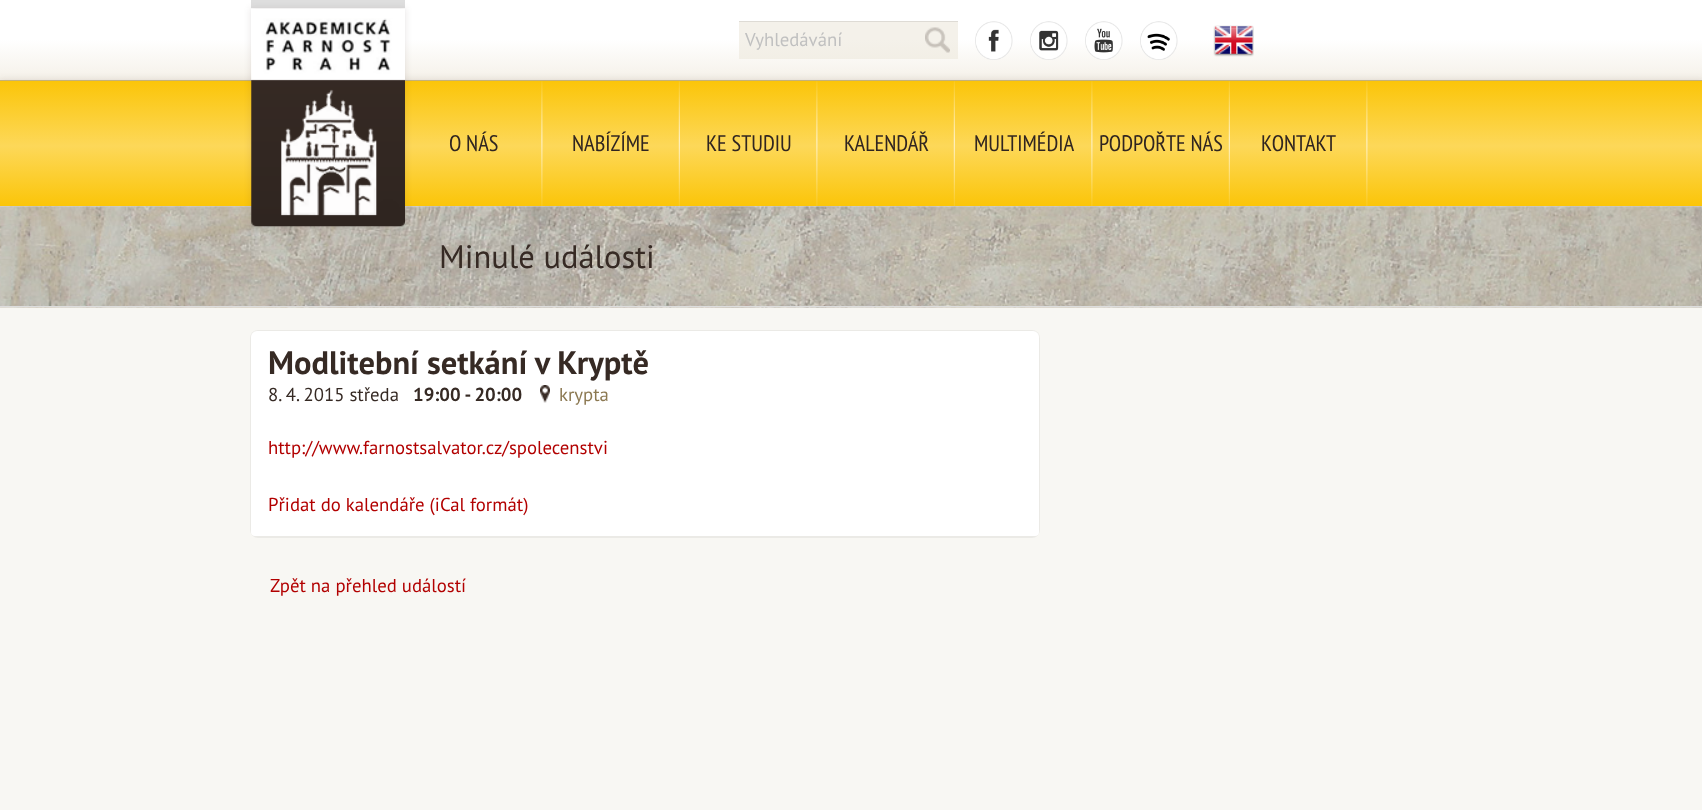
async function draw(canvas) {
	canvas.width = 1702;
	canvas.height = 810;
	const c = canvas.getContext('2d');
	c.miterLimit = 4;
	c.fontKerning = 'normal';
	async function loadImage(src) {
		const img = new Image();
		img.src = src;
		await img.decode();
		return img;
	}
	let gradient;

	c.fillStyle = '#f8f7f3';
	c.fillRect(0, 0, 1702, 810);
	gradient = c.createLinearGradient(851, 0, 851, 80);
	gradient.addColorStop(0, '#fff');
	gradient.addColorStop(0.49, '#fff');
	gradient.addColorStop(1, '#f5f1e9');
	c.fillStyle = gradient;
	c.fillRect(0, 0, 1702, 80);
	gradient = c.createLinearGradient(851, 0, 851, 80);
	gradient.addColorStop(0, '#f4f1ea');
	gradient.addColorStop(0.49, '#f4f1ea');
	gradient.addColorStop(1, '#f0ece1');
	c.fillStyle = gradient;
	c.fillRect(739, 22, 219, 37);
	c.fillStyle = '#392c261a';
	c.filter = 'blur(3px)';
	c.beginPath();
	c.rect(-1, 79, 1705, 129);
	c.fill();
	c.filter = 'none';
	gradient = c.createLinearGradient(851, 81, 851, 206);
	gradient.addColorStop(0, '#fbc509');
	gradient.addColorStop(0.52, '#fdd859');
	gradient.addColorStop(1, '#fbc509');
	c.fillStyle = gradient;
	c.fillRect(0, 81, 1702, 125);
	c.fillStyle = '#c4b27a';
	c.fillRect(0, 80, 1702, 1);
	c.fillStyle = '#dedede';
	c.fillRect(251, 0, 154, 8);
	c.drawImage(await loadImage('img10.png'), 0, 206, 1702, 102);
	c.save();
	c.beginPath();
	c.moveTo(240, 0);
	c.lineTo(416, 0);
	c.lineTo(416, 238);
	c.lineTo(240, 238);
	c.closePath();
	c.moveTo(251, 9);
	c.lineTo(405, 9);
	c.lineTo(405, 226);
	c.lineTo(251, 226);
	c.closePath();
	c.clip('evenodd');
	c.fillStyle = '#392c261a';
	c.filter = 'blur(3px)';
	c.beginPath();
	c.rect(250, 8, 156, 220);
	c.fill();
	c.filter = 'none';
	c.restore();
	c.drawImage(await loadImage('img1.png'), 251, 18, 154, 209);
	c.fillStyle = '#dedbd5';
	c.fillRect(739, 21, 219, 1);
	c.font = '18.75px PT Sans';
	c.fillStyle = '#c0c0c0';
	c.fillText('Vyhledávání', 745, 46);
	c.drawImage(await loadImage('img2.png'), 925, 27, 25, 26);
	c.drawImage(await loadImage('img3.png'), 975, 21, 38, 39);
	c.drawImage(await loadImage('img4.png'), 1030, 21, 38, 39);
	c.drawImage(await loadImage('img5.png'), 1085, 21, 38, 39);
	c.drawImage(await loadImage('img6.png'), 1140, 21, 38, 39);
	c.drawImage(await loadImage('img7.png'), 1213, 25, 41, 32);
	c.drawImage(await loadImage('img8.png'), 541, 81, 2, 125);
	c.font = '22.5px PT Sans Narrow';
	c.fillStyle = '#302520';
	c.fillText('O NÁS', 449, 151);
	c.drawImage(await loadImage('img9.png'), 678, 81, 2, 125);
	c.fillText('NABÍZÍME', 572, 151);
	c.drawImage(await loadImage('img8.png'), 816, 81, 2, 125);
	c.fillText('KE STUDIU', 706, 151);
	c.drawImage(await loadImage('img9.png'), 953, 81, 2, 125);
	c.fillText('KALENDÁŘ', 844, 151);
	c.drawImage(await loadImage('img8.png'), 1091, 81, 2, 125);
	c.fillText('MULTIMÉDIA', 974, 151);
	c.drawImage(await loadImage('img9.png'), 1228, 81, 2, 125);
	c.fillText('PODPOŘTE NÁS', 1099, 151);
	c.drawImage(await loadImage('img8.png'), 1366, 81, 2, 125);
	c.fillText('KONTAKT', 1261, 151);
	c.fillStyle = '#ddd';
	c.fillRect(0, 306, 1702, 1);
	c.font = '32.5px PT Sans';
	c.fillStyle = '#362a24';
	c.fillText('Minulé události', 439, 268);
	c.fillStyle = '#0000000d';
	c.filter = 'blur(0.5px)';
	c.beginPath();
	c.roundRect(250, 330, 790, 208, 8);
	c.fill();
	c.filter = 'none';
	c.fillStyle = '#fff';
	c.beginPath();
	c.roundRect(251, 331, 788, 205, [6, 6, 4, 4]);
	c.fill();
	c.font = 'bold 32.5px PT Sans';
	c.fillStyle = '#362a24';
	c.fillText('Modlitební setkání v Kryptě', 268, 374);
	c.font = '18.75px PT Sans';
	c.fillText('8. 4. 2015 středa', 268, 401);
	c.font = 'bold 18.75px PT Sans';
	c.fillText('19:00 - 20:00', 413, 401);
	c.drawImage(await loadImage('img11.png'), 540, 385, 10, 18);
	c.font = '18.75px PT Sans';
	c.fillStyle = '#8c7952';
	c.fillText('krypta', 559, 401);
	c.fillStyle = '#b20000';
	for (const [text, x, y] of [
		['http://www.farnostsalvator.cz/spolecenstvi', 268, 454],
		['Přidat do kalendáře (iCal formát)', 268, 511],
		['Zpět na přehled událostí', 270, 592],
	]) {
		c.fillText(text, x, y);
	}
}

draw(document.querySelector('canvas'));
